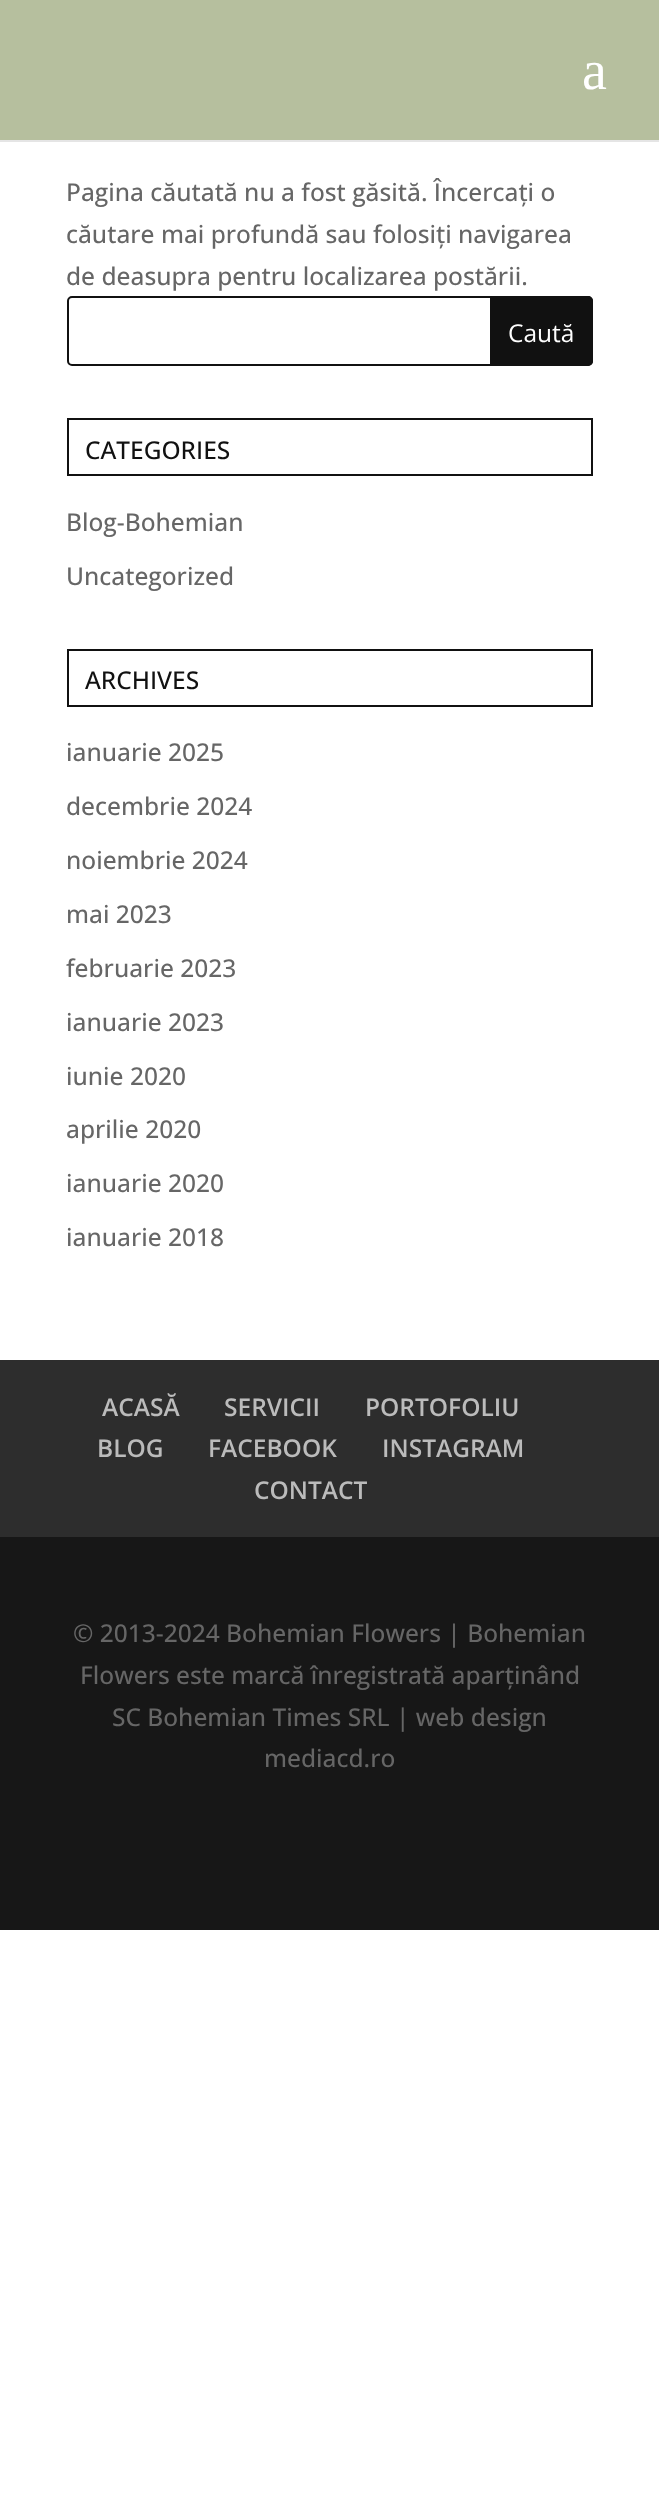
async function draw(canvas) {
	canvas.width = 659;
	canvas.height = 2517;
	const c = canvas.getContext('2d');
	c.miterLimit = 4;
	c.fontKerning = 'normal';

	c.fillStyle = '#fff';
	c.fillRect(0, 0, 659, 2517);
	c.fillStyle = '#0000001a';
	c.beginPath();
	c.moveTo(0, 140);
	c.lineTo(0, 142);
	c.lineTo(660, 142);
	c.lineTo(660, 2);
	c.lineTo(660, 140);
	c.closePath();
	c.fill();
	c.fillStyle = '#aeb893e6';
	c.fillRect(0, 0, 659, 140);
	c.font = '56px Liberation Serif';
	c.fillStyle = '#fff';
	c.fillText('a', 582, 89);
	c.font = '500 24.5px Open Sans';
	c.fillStyle = '#666';
	for (const [text, x, y] of [
		['Pagina căutată nu a fost găsită. Încercați o', 66, 201],
		['căutare mai profundă sau folosiți navigarea', 66, 243],
		['de deasupra pentru localizarea postării.', 66, 285],
	]) {
		c.fillText(text, x, y);
	}
	c.beginPath();
	c.roundRect(68, 297, 524, 68, 4);
	c.strokeStyle = '#111';
	c.lineWidth = 2;
	c.stroke();
	c.fillStyle = '#111';
	c.beginPath();
	c.roundRect(491, 297, 101, 68, [0, 4, 4, 0]);
	c.fill();
	c.stroke();
	c.font = '24.5px Open Sans';
	c.fillStyle = '#fff';
	c.fillText('Caută', 508, 342);
	c.strokeRect(68, 419, 524, 56);
	c.font = '500 24.5px Open Sans';
	c.fillStyle = '#111';
	c.fillText('CATEGORIES', 85, 459);
	c.fillStyle = '#666';
	c.fillText('Blog-Bohemian', 66, 531);
	c.fillText('Uncategorized', 66, 585);
	c.strokeRect(68, 650, 524, 56);
	c.fillStyle = '#111';
	c.fillText('ARCHIVES', 85, 689);
	c.fillStyle = '#666';
	for (const [text, x, y] of [
		['ianuarie 2025', 66, 761],
		['decembrie 2024', 66, 815],
		['noiembrie 2024', 66, 869],
		['mai 2023', 66, 923],
		['februarie 2023', 66, 977],
		['ianuarie 2023', 66, 1031],
		['iunie 2020', 66, 1085],
		['aprilie 2020', 66, 1138],
		['ianuarie 2020', 66, 1192],
		['ianuarie 2018', 66, 1246],
	]) {
		c.fillText(text, x, y);
	}
	c.fillStyle = '#2d2d2d';
	c.fillRect(0, 1360, 659, 177);
	c.font = '600 24.5px Open Sans';
	c.fillStyle = '#bbb';
	for (const [text, x, y] of [
		['ACASĂ', 102, 1416],
		['SERVICII', 224, 1416],
		['PORTOFOLIU', 365, 1416],
		['BLOG', 97, 1457],
		['FACEBOOK', 208, 1457],
		['INSTAGRAM', 382, 1457],
		['CONTACT', 254, 1499],
	]) {
		c.fillText(text, x, y);
	}
	c.fillStyle = '#171717';
	c.fillRect(0, 1537, 659, 393);
	c.font = '500 24.5px Open Sans';
	c.fillStyle = '#666';
	for (const [text, x, y] of [
		['© 2013-2024 Bohemian Flowers | Bohemian', 73, 1642],
		['Flowers este marcă înregistrată aparținând', 80, 1684],
		['SC Bohemian Times SRL | web design', 112, 1726],
		['mediacd.ro', 264, 1767],
	]) {
		c.fillText(text, x, y);
	}
}

draw(document.querySelector('canvas'));
